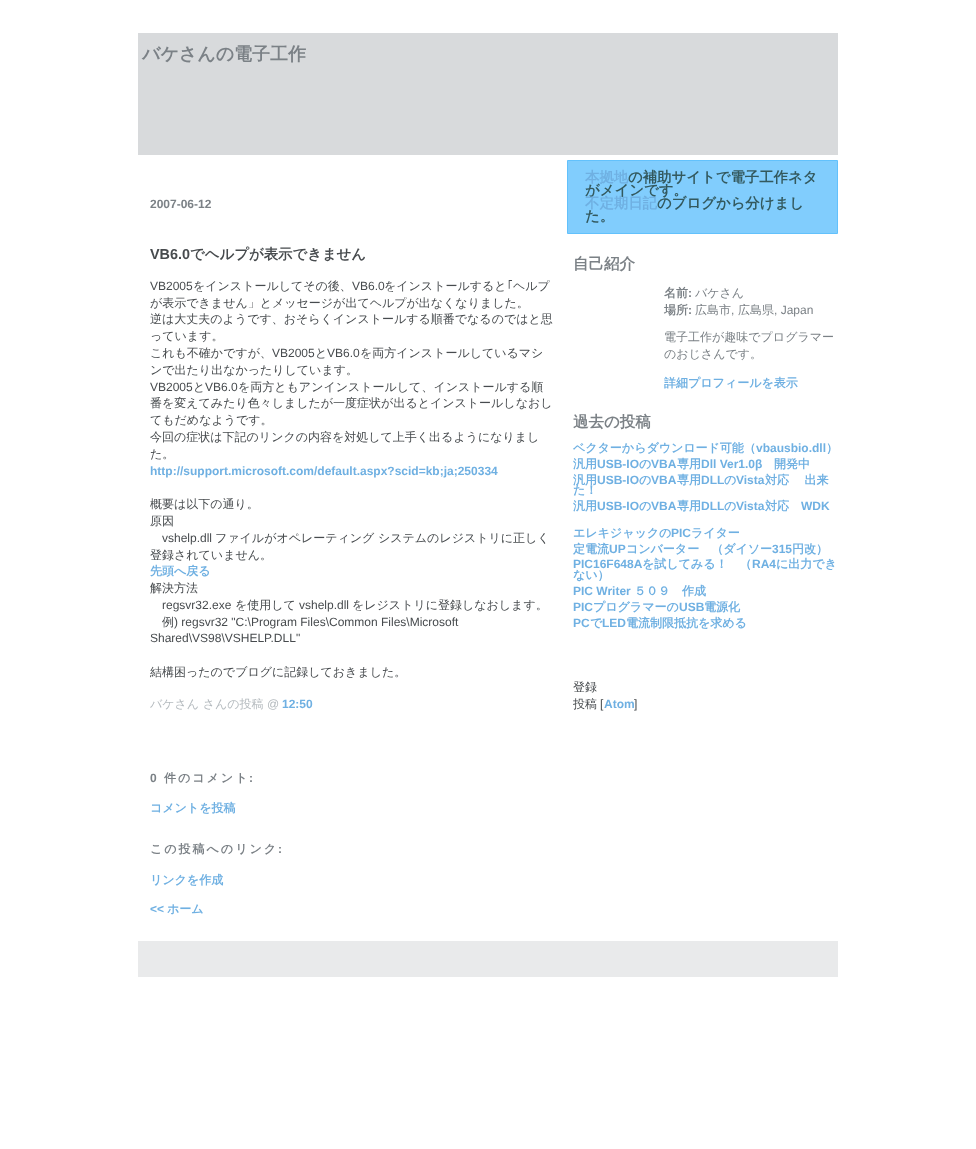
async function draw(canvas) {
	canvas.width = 976;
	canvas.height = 1149;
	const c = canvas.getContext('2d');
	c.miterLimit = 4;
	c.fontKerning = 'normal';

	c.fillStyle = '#fff';
	c.fillRect(0, 0, 976, 1149);
	c.fillStyle = '#d8dadc';
	c.fillRect(138, 33, 700, 122);
	c.font = 'bold 18px WenQuanYi Zen Hei';
	c.fillStyle = '#7b8186';
	c.fillText('バケさんの電子工作', 142, 60);
	c.font = 'bold 12px Liberation Sans';
	c.fillText('2007-06-12', 150, 208);
	c.font = 'bold 14.4px Liberation Sans';
	c.fillStyle = '#474b4e';
	c.fillText('VB6.0', 150, 259);
	c.font = 'bold 14.4px WenQuanYi Zen Hei';
	c.fillText('でヘルプが表示できません', 190, 259);
	c.font = '12px Liberation Sans';
	c.fillText('VB2005', 150, 290);
	c.font = '500 12px WenQuanYi Zen Hei';
	c.fillText('をインストールしてその後、', 193, 290);
	c.font = '12px Liberation Sans';
	c.fillText('VB6.0', 352, 290);
	c.font = '500 12px WenQuanYi Zen Hei';
	c.fillText('をインストールすると', 384, 290);
	c.font = '12px IPAGothic';
	c.fillText('｢', 507, 290);
	c.font = '500 12px WenQuanYi Zen Hei';
	for (const [text, x, y] of [
		['ヘルプ', 513, 290],
		['が表示できません」とメッセージが出てヘルプが出なくなりました。', 150, 307],
		['逆は大丈夫のようです、おそらくインストールする順番でなるのではと思', 150, 323],
		['っています。', 150, 340],
		['これも不確かですが、', 150, 357],
	]) {
		c.fillText(text, x, y);
	}
	c.font = '12px Liberation Sans';
	c.fillText('VB2005', 272, 357);
	c.font = '500 12px WenQuanYi Zen Hei';
	c.fillText('と', 315, 357);
	c.font = '12px Liberation Sans';
	c.fillText('VB6.0', 327, 357);
	c.font = '500 12px WenQuanYi Zen Hei';
	c.fillText('を両方インストールしているマシ', 360, 357);
	c.fillText('ンで出たり出なかったりしています。', 150, 374);
	c.font = '12px Liberation Sans';
	c.fillText('VB2005', 150, 391);
	c.font = '500 12px WenQuanYi Zen Hei';
	c.fillText('と', 193, 391);
	c.font = '12px Liberation Sans';
	c.fillText('VB6.0', 205, 391);
	c.font = '500 12px WenQuanYi Zen Hei';
	for (const [text, x, y] of [
		['を両方ともアンインストールして、インストールする順', 238, 391],
		['番を変えてみたり色々しましたが一度症状が出るとインストールしなおし', 150, 407],
		['てもだめなようです。', 150, 424],
		['今回の症状は下記のリンクの内容を対処して上手く出るようになりまし', 150, 441],
		['た。', 150, 458],
	]) {
		c.fillText(text, x, y);
	}
	c.font = 'bold 12px Liberation Sans';
	c.fillStyle = '#6fb0e2';
	c.fillText('http://support.microsoft.com/default.aspx?scid=kb;ja;250334', 150, 475);
	c.font = '500 12px WenQuanYi Zen Hei';
	c.fillStyle = '#474b4e';
	c.fillText('概要は以下の通り。', 150, 508);
	c.fillText('原因', 150, 525);
	c.font = '12px Liberation Sans';
	c.fillText('vshelp.dll', 162, 542);
	c.font = '500 12px WenQuanYi Zen Hei';
	c.fillText('ファイルがオペレーティング システムのレジストリに正しく', 215, 542);
	c.fillText('登録されていません。', 150, 559);
	c.font = 'bold 12px WenQuanYi Zen Hei';
	c.fillStyle = '#6fb0e2';
	c.fillText('先頭へ戻る', 150, 575);
	c.font = '500 12px WenQuanYi Zen Hei';
	c.fillStyle = '#474b4e';
	c.fillText('解決方法', 150, 592);
	c.font = '12px Liberation Sans';
	c.fillText('regsvr32.exe', 162, 609);
	c.font = '500 12px WenQuanYi Zen Hei';
	c.fillText('を使用して', 235, 609);
	c.font = '12px Liberation Sans';
	c.fillText('vshelp.dll', 299, 609);
	c.font = '500 12px WenQuanYi Zen Hei';
	c.fillText('をレジストリに登録しなおします。', 352, 609);
	c.fillText('例', 162, 626);
	c.font = '12px Liberation Sans';
	c.fillText(') regsvr32 "C:\\Program Files\\Common Files\\Microsoft', 174, 626);
	c.fillText('Shared\\VS98\\VSHELP.DLL"', 150, 642);
	c.font = '500 12px WenQuanYi Zen Hei';
	c.fillText('結構困ったのでブログに記録しておきました。', 150, 676);
	c.fillStyle = '#b4babe';
	c.fillText('バケさん さんの投稿', 150, 708);
	c.font = '12px Liberation Sans';
	c.fillText('@', 267, 708);
	c.font = 'bold 12px Liberation Sans';
	c.fillStyle = '#6fb0e2';
	c.fillText('12:50', 282, 708);
	c.letterSpacing = '2px';
	c.fillStyle = '#7b8186';
	c.fillText('0', 150, 782);
	c.font = 'bold 12px WenQuanYi Zen Hei';
	c.fillText('件のコメント', 164, 782);
	c.font = 'bold 12px Liberation Sans';
	c.fillText(':', 249, 782);
	c.letterSpacing = '0px';
	c.font = 'bold 12px WenQuanYi Zen Hei';
	c.fillStyle = '#6fb0e2';
	c.fillText('コメントを投稿', 150, 812);
	c.letterSpacing = '2px';
	c.fillStyle = '#7b8186';
	c.fillText('この投稿へのリンク', 150, 853);
	c.font = 'bold 12px Liberation Sans';
	c.fillText(':', 278, 853);
	c.letterSpacing = '0px';
	c.font = 'bold 12px WenQuanYi Zen Hei';
	c.fillStyle = '#6fb0e2';
	c.fillText('リンクを作成', 150, 884);
	c.font = 'bold 12px Liberation Sans';
	c.fillText('<<', 150, 913);
	c.font = 'bold 12px WenQuanYi Zen Hei';
	c.fillText('ホーム', 167, 913);
	c.fillStyle = '#81cdfd';
	c.beginPath();
	c.rect(567.5, 160.5, 270, 73);
	c.fill();
	c.strokeStyle = '#62c1fc';
	c.stroke();
	c.font = 'bold 14.4px WenQuanYi Zen Hei';
	c.fillStyle = '#6fb0e2';
	c.fillText('本拠地', 585, 182);
	c.fillStyle = '#33595e';
	c.fillText('の補助サイトで電子工作ネタ', 628, 182);
	c.fillText('がメインです。', 585, 195);
	c.fillStyle = '#6fb0e2';
	c.fillText('不定期日記', 585, 208);
	c.fillStyle = '#33595e';
	c.fillText('のブログから分けまし', 657, 208);
	c.fillText('た。', 585, 221);
	c.font = 'bold 15.5px WenQuanYi Zen Hei';
	c.fillStyle = '#7b8186';
	c.fillText('自己紹介', 573, 269);
	c.font = 'bold 12px WenQuanYi Zen Hei';
	c.fillText('名前', 664, 297);
	c.font = 'bold 12px Liberation Sans';
	c.fillText(':', 688, 297);
	c.font = '500 12px WenQuanYi Zen Hei';
	c.fillText('バケさん', 695, 297);
	c.font = 'bold 12px WenQuanYi Zen Hei';
	c.fillText('場所', 664, 314);
	c.font = 'bold 12px Liberation Sans';
	c.fillText(':', 688, 314);
	c.font = '500 12px WenQuanYi Zen Hei';
	c.fillText('広島市', 695, 314);
	c.font = '12px Liberation Sans';
	c.fillText(',', 731, 314);
	c.font = '500 12px WenQuanYi Zen Hei';
	c.fillText('広島県', 738, 314);
	c.font = '12px Liberation Sans';
	c.fillText(', Japan', 774, 314);
	c.font = '500 12px WenQuanYi Zen Hei';
	c.fillText('電子工作が趣味でプログラマー', 664, 341);
	c.fillText('のおじさんです。', 664, 358);
	c.font = 'bold 12px WenQuanYi Zen Hei';
	c.fillStyle = '#6fb0e2';
	c.fillText('詳細プロフィールを表示', 664, 387);
	c.font = 'bold 15.5px WenQuanYi Zen Hei';
	c.fillStyle = '#7b8186';
	c.fillText('過去の投稿', 573, 427);
	c.font = 'bold 12px WenQuanYi Zen Hei';
	c.fillStyle = '#6fb0e2';
	c.fillText('ベクターからダウンロード可能（', 573, 452);
	c.font = 'bold 12px Liberation Sans';
	c.fillText('vbausbio.dll', 756, 452);
	c.font = 'bold 12px WenQuanYi Zen Hei';
	c.fillText('）', 826, 452);
	c.fillText('汎用', 573, 468);
	c.font = 'bold 12px Liberation Sans';
	c.fillText('USB-IO', 597, 468);
	c.font = 'bold 12px WenQuanYi Zen Hei';
	c.fillText('の', 639, 468);
	c.font = 'bold 12px Liberation Sans';
	c.fillText('VBA', 651, 468);
	c.font = 'bold 12px WenQuanYi Zen Hei';
	c.fillText('専用', 677, 468);
	c.font = 'bold 12px Liberation Sans';
	c.fillText('Dll Ver1.0β', 701, 468);
	c.font = 'bold 12px WenQuanYi Zen Hei';
	c.fillText('開発中', 774, 468);
	c.fillText('汎用', 573, 484);
	c.font = 'bold 12px Liberation Sans';
	c.fillText('USB-IO', 597, 484);
	c.font = 'bold 12px WenQuanYi Zen Hei';
	c.fillText('の', 639, 484);
	c.font = 'bold 12px Liberation Sans';
	c.fillText('VBA', 651, 484);
	c.font = 'bold 12px WenQuanYi Zen Hei';
	c.fillText('専用', 677, 484);
	c.font = 'bold 12px Liberation Sans';
	c.fillText('DLL', 701, 484);
	c.font = 'bold 12px WenQuanYi Zen Hei';
	c.fillText('の', 724, 484);
	c.font = 'bold 12px Liberation Sans';
	c.fillText('Vista', 736, 484);
	c.font = 'bold 12px WenQuanYi Zen Hei';
	for (const [text, x, y] of [
		['対応　 出来', 765, 484],
		['た！', 573, 494],
		['汎用', 573, 510],
	]) {
		c.fillText(text, x, y);
	}
	c.font = 'bold 12px Liberation Sans';
	c.fillText('USB-IO', 597, 510);
	c.font = 'bold 12px WenQuanYi Zen Hei';
	c.fillText('の', 639, 510);
	c.font = 'bold 12px Liberation Sans';
	c.fillText('VBA', 651, 510);
	c.font = 'bold 12px WenQuanYi Zen Hei';
	c.fillText('専用', 677, 510);
	c.font = 'bold 12px Liberation Sans';
	c.fillText('DLL', 701, 510);
	c.font = 'bold 12px WenQuanYi Zen Hei';
	c.fillText('の', 724, 510);
	c.font = 'bold 12px Liberation Sans';
	c.fillText('Vista', 736, 510);
	c.font = 'bold 12px WenQuanYi Zen Hei';
	c.fillText('対応', 765, 510);
	c.font = 'bold 12px Liberation Sans';
	c.fillText('WDK', 801, 510);
	c.font = 'bold 12px WenQuanYi Zen Hei';
	c.fillText('エレキジャックの', 573, 537);
	c.font = 'bold 12px Liberation Sans';
	c.fillText('PIC', 671, 537);
	c.font = 'bold 12px WenQuanYi Zen Hei';
	c.fillText('ライター', 691, 537);
	c.fillText('定電流', 573, 553);
	c.font = 'bold 12px Liberation Sans';
	c.fillText('UP', 609, 553);
	c.font = 'bold 12px WenQuanYi Zen Hei';
	c.fillText('コンバーター　（ダイソー', 626, 553);
	c.font = 'bold 12px Liberation Sans';
	c.fillText('315', 772, 553);
	c.font = 'bold 12px WenQuanYi Zen Hei';
	c.fillText('円改）', 792, 553);
	c.font = 'bold 12px Liberation Sans';
	c.fillText('PIC16F648A', 573, 568);
	c.font = 'bold 12px WenQuanYi Zen Hei';
	c.fillText('を試してみる！　（', 642, 568);
	c.font = 'bold 12px Liberation Sans';
	c.fillText('RA4', 752, 568);
	c.font = 'bold 12px WenQuanYi Zen Hei';
	c.fillText('に出力でき', 776, 568);
	c.fillText('ない）', 573, 579);
	c.font = 'bold 12px Liberation Sans';
	c.fillText('PIC Writer', 573, 595);
	c.font = 'bold 12px WenQuanYi Zen Hei';
	c.fillText('５０９　作成', 634, 595);
	c.font = 'bold 12px Liberation Sans';
	c.fillText('PIC', 573, 611);
	c.font = 'bold 12px WenQuanYi Zen Hei';
	c.fillText('プログラマーの', 593, 611);
	c.font = 'bold 12px Liberation Sans';
	c.fillText('USB', 679, 611);
	c.font = 'bold 12px WenQuanYi Zen Hei';
	c.fillText('電源化', 704, 611);
	c.font = 'bold 12px Liberation Sans';
	c.fillText('PC', 573, 627);
	c.font = 'bold 12px WenQuanYi Zen Hei';
	c.fillText('で', 590, 627);
	c.font = 'bold 12px Liberation Sans';
	c.fillText('LED', 602, 627);
	c.font = 'bold 12px WenQuanYi Zen Hei';
	c.fillText('電流制限抵抗を求める', 626, 627);
	c.font = '500 12px WenQuanYi Zen Hei';
	c.fillStyle = '#474b4e';
	c.fillText('登録', 573, 691);
	c.fillText('投稿', 573, 708);
	c.font = '12px Liberation Sans';
	c.fillText('[', 600, 708);
	c.font = 'bold 12px Liberation Sans';
	c.fillStyle = '#6fb0e2';
	c.fillText('Atom', 604, 708);
	c.font = '12px Liberation Sans';
	c.fillStyle = '#474b4e';
	c.fillText(']', 634, 708);
	c.fillStyle = '#e9eaeb';
	c.fillRect(138, 941, 700, 36);
}

draw(document.querySelector('canvas'));
